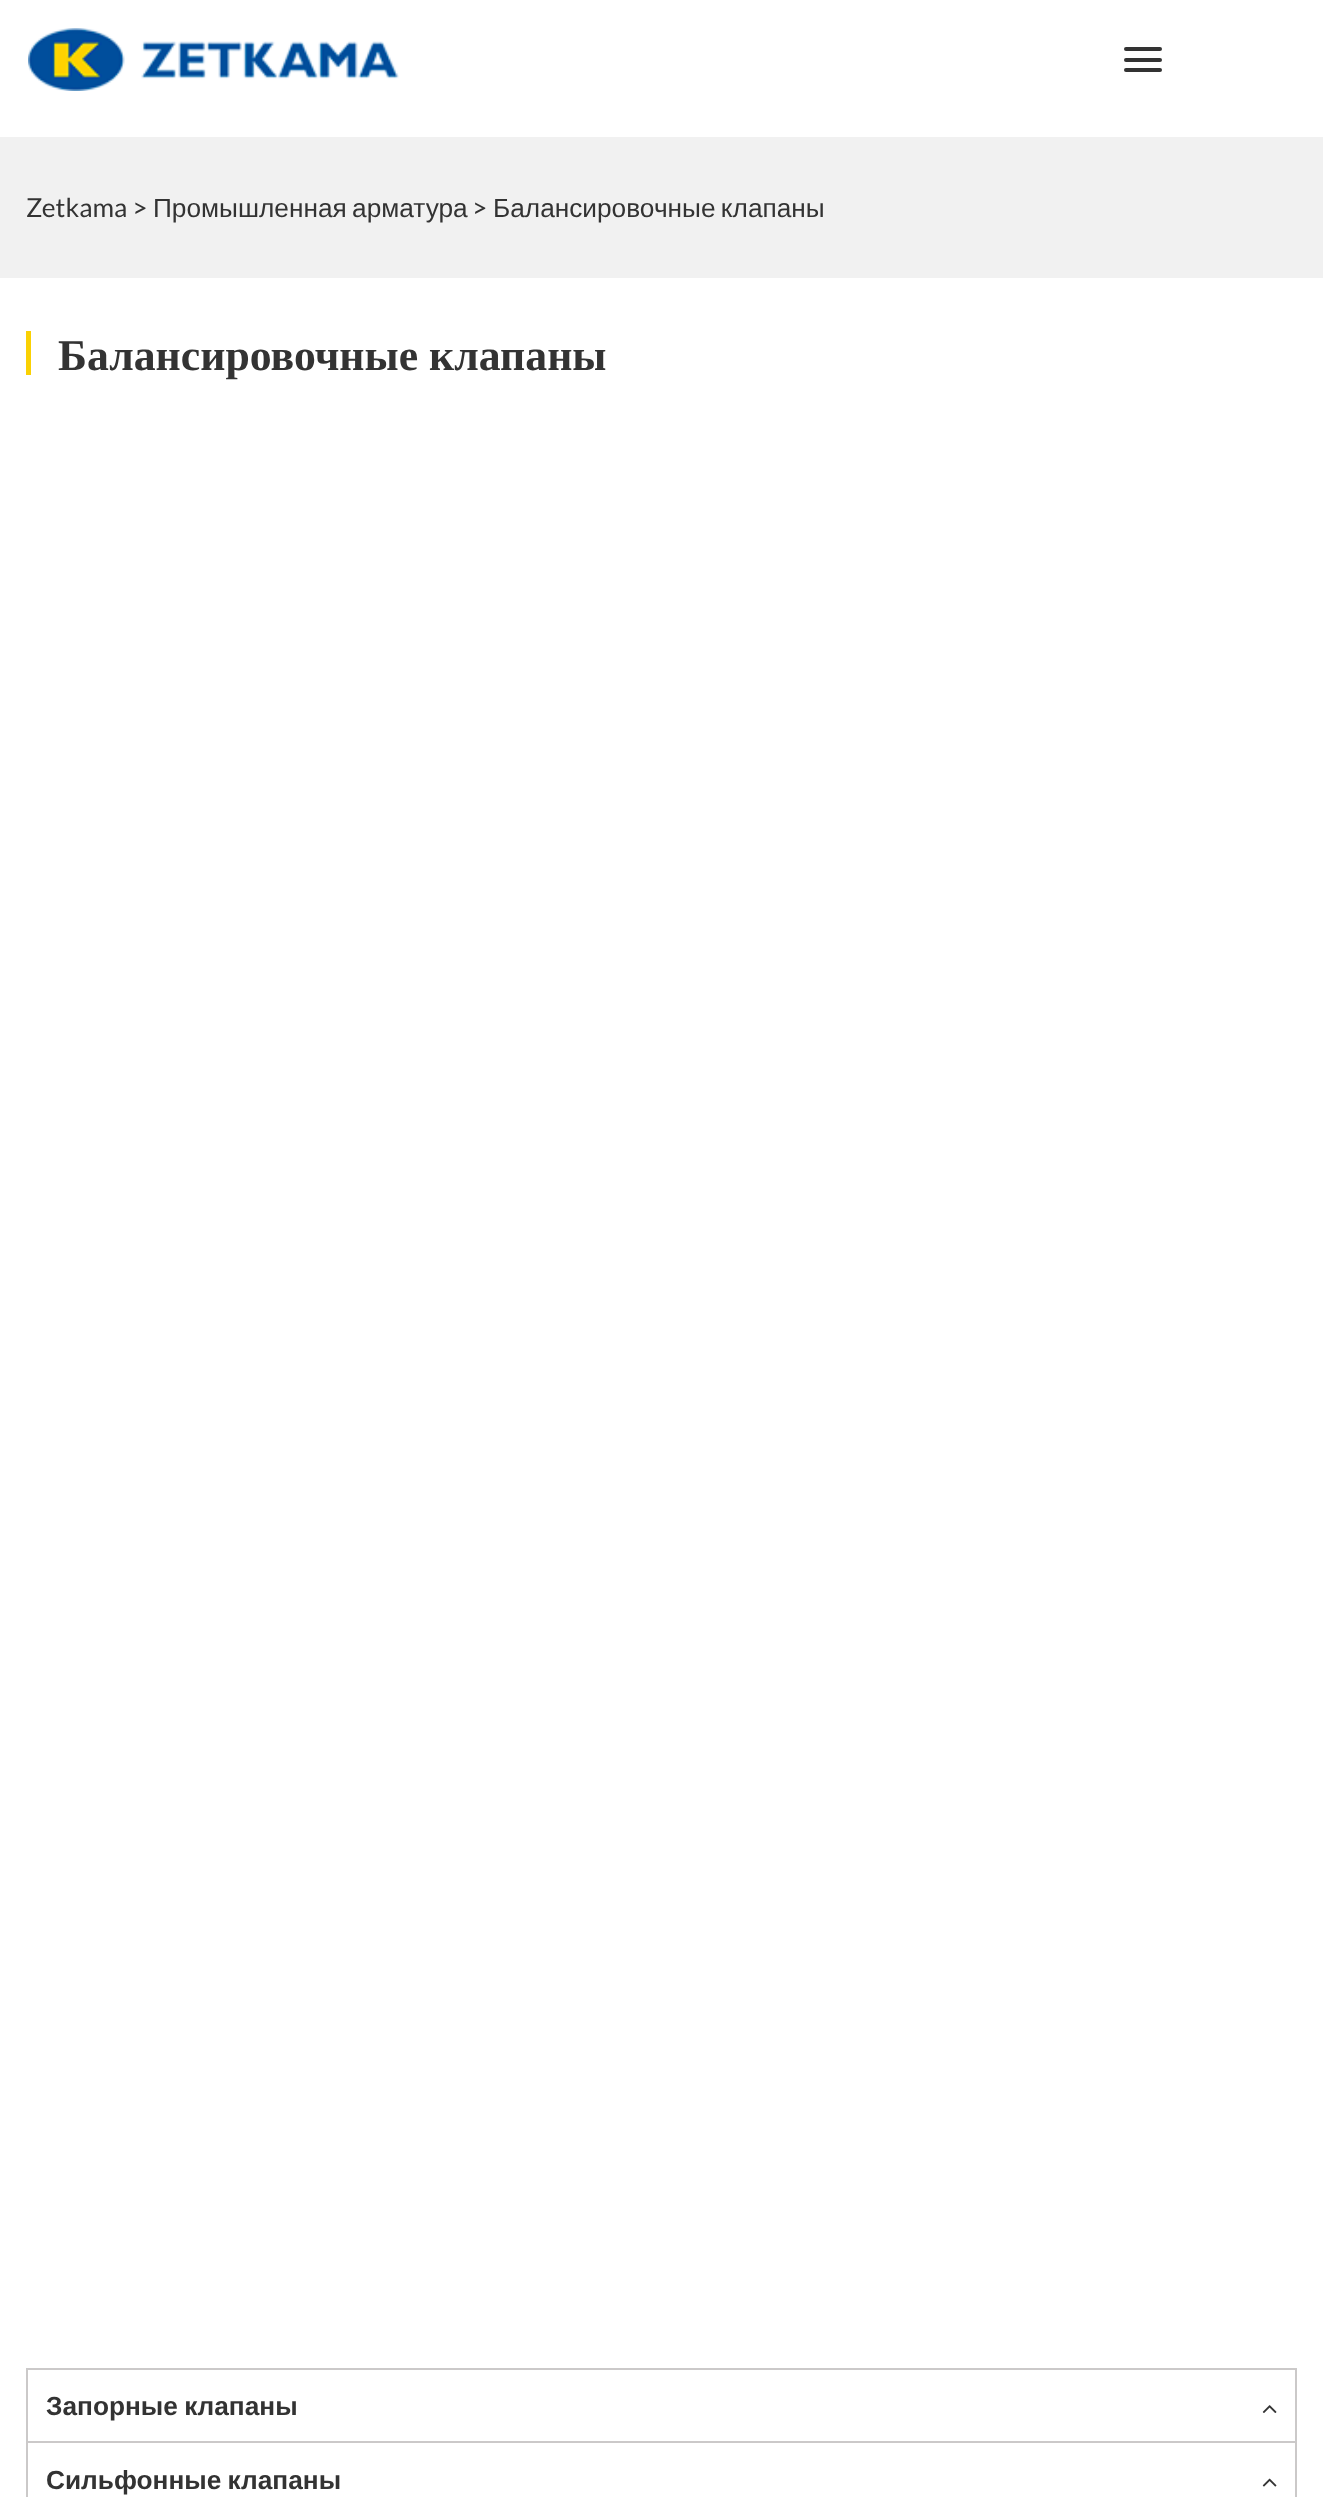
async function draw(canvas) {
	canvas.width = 1323;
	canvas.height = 2497;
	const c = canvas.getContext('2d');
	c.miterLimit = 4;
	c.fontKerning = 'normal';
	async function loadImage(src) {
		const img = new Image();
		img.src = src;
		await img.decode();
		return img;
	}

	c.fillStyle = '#fff';
	c.fillRect(0, 0, 1323, 2497);
	c.drawImage(await loadImage('img1.png'), 28, 28, 371, 63);
	c.fillStyle = '#333';
	c.beginPath();
	c.roundRect(1124, 47, 38, 4, 2);
	c.fill();
	c.beginPath();
	c.roundRect(1124, 58, 38, 4, 2);
	c.fill();
	c.beginPath();
	c.roundRect(1124, 68, 38, 4, 2);
	c.fill();
	c.fillStyle = '#f1f1f1';
	c.fillRect(0, 137, 1323, 141);
	c.font = '26.25px Lato';
	c.fillStyle = '#333';
	c.fillText('Zetkama >', 26, 217);
	c.wordSpacing = '-2px';
	c.font = '26.25px Liberation Sans';
	c.fillText('Промышленная арматура', 153, 217);
	c.wordSpacing = '0px';
	c.font = '26.25px Lato';
	c.fillText('>', 472, 217);
	c.wordSpacing = '-2px';
	c.font = '26.25px Liberation Sans';
	c.fillText('Балансировочные клапаны', 493, 217);
	c.fillStyle = '#fad103';
	c.fillRect(26, 331, 5, 44);
	c.wordSpacing = '0px';
	c.font = 'bold 43.75px Liberation Serif';
	c.fillStyle = '#333';
	c.fillText('Балансировочные клапаны', 58, 370);
	for (const [x, y, w, h, color] of [
		[26, 2368, 1271, 2, '#cbc9c9'],
		[1295, 2368, 2, 73, '#cbc9c9'],
		[26, 2368, 2, 73, '#cbc9c9'],
	]) {
		c.fillStyle = color;
		c.fillRect(x, y, w, h);
	}
	c.wordSpacing = '-1px';
	c.font = 'bold 26.25px Liberation Sans';
	c.fillStyle = '#333';
	c.fillText('Запорные клапаны', 46, 2415);
	c.drawImage(await loadImage('img2.png'), 1262, 2405, 15, 8);
	for (const [x, y, w, h, color] of [
		[26, 2441, 1271, 2, '#cbc9c9'],
		[1295, 2441, 2, 56, '#cbc9c9'],
		[26, 2441, 2, 56, '#cbc9c9'],
	]) {
		c.fillStyle = color;
		c.fillRect(x, y, w, h);
	}
	c.fillStyle = '#333';
	c.fillText('Сильфонные клапаны', 46, 2489);
	c.drawImage(await loadImage('img3.png'), 1262, 2478, 15, 9);
}

draw(document.querySelector('canvas'));
